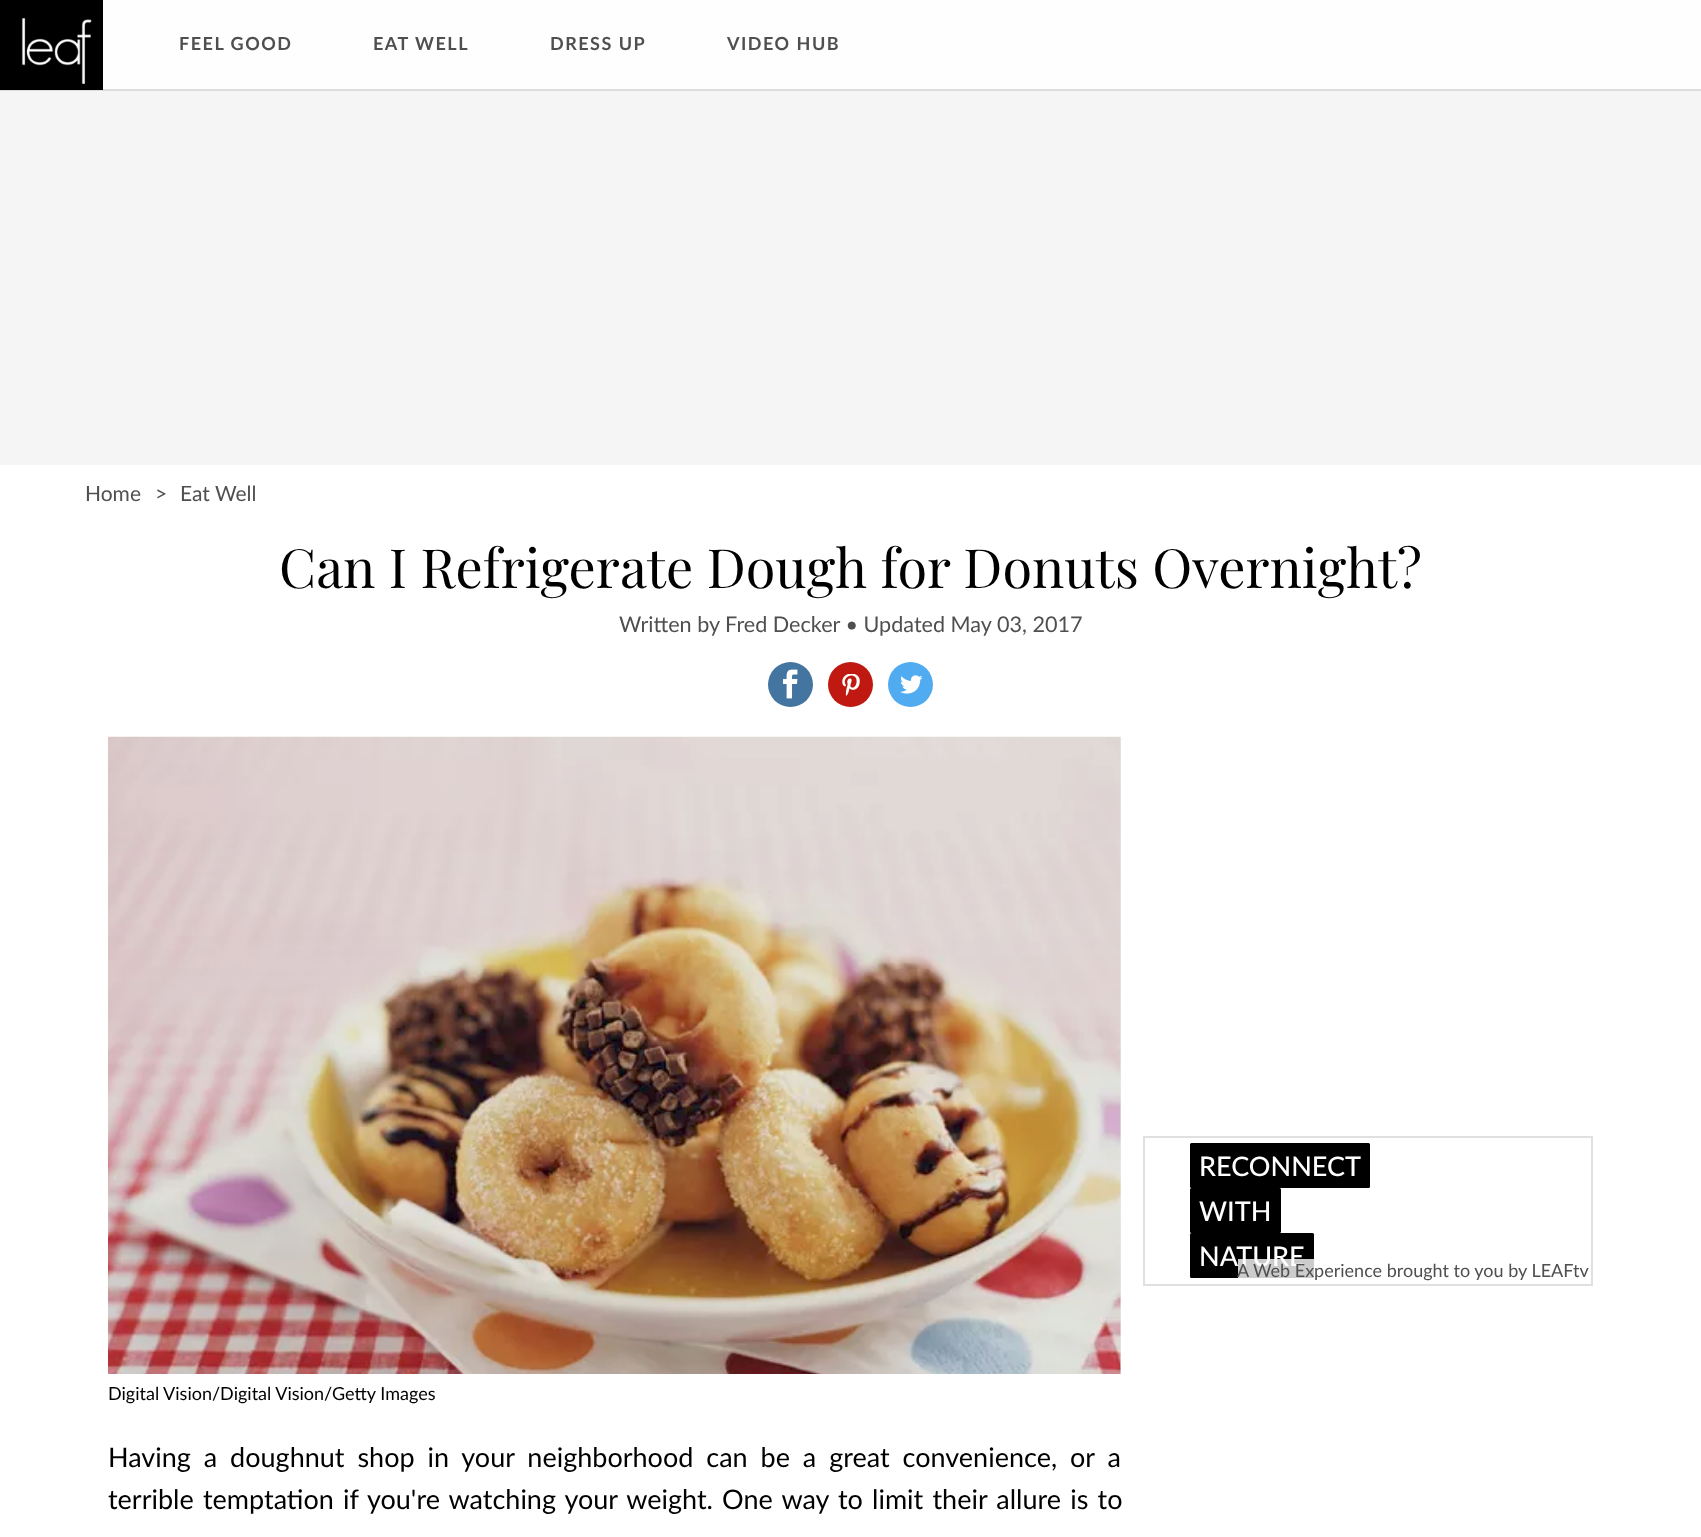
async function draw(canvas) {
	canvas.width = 1701;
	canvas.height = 1537;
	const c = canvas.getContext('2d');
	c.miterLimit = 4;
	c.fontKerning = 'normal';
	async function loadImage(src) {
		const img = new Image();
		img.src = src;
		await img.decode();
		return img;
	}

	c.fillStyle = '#f5f5f5';
	c.fillRect(0, 0, 1701, 1537);
	c.fillStyle = '#fefefe';
	c.fillRect(103, 0, 1598, 89);
	c.fillStyle = '#dcdcdc';
	c.fillRect(0, 89, 1701, 2);
	c.drawImage(await loadImage('img1.png'), 0, 0, 103, 90);
	c.letterSpacing = '1.5px';
	c.font = 'bold 18px Lato';
	c.fillStyle = '#4f4f4f';
	for (const [text, x, y] of [
		['FEEL GOOD', 179, 50],
		['EAT WELL', 373, 50],
		['DRESS UP', 550, 50],
		['VIDEO HUB', 727, 50],
	]) {
		c.fillText(text, x, y);
	}
	c.fillStyle = '#fff';
	c.fillRect(0, 465, 1701, 1072);
	c.letterSpacing = '0px';
	c.font = '21px Lato';
	c.fillStyle = '#4f4f4f';
	for (const [text, x, y] of [
		['Home', 85, 501],
		['>', 155, 501],
		['Eat Well', 180, 501],
	]) {
		c.fillText(text, x, y);
	}
	c.font = '54px Playfair Display';
	c.fillStyle = '#000';
	c.fillText('Can I Refrigerate Dough for Donuts Overnight?', 279, 588);
	c.font = '21.6px Lato';
	c.fillStyle = '#4f4f4f';
	c.fillText('Written by Fred Decker • Updated May 03, 2017', 619, 632);
	c.fillStyle = '#4475a0';
	c.beginPath();
	c.arc(790.5, 684.5, 22.5, 0, 2 * Math.PI);
	c.fill();
	c.drawImage(await loadImage('img2.png'), 783, 669, 15, 30);
	c.fillStyle = '#bf1911';
	c.beginPath();
	c.arc(850.5, 684.5, 22.5, 0, 2 * Math.PI);
	c.fill();
	c.drawImage(await loadImage('img3.png'), 842, 674, 18, 22);
	c.fillStyle = '#50abf1';
	c.beginPath();
	c.arc(910.5, 684.5, 22.5, 0, 2 * Math.PI);
	c.fill();
	c.drawImage(await loadImage('img4.png'), 900, 675, 23, 19);
	c.strokeStyle = '#e0e0e0';
	c.lineWidth = 2;
	c.strokeRect(1144, 1137, 448, 148);
	c.fillStyle = '#000';
	c.beginPath();
	c.roundRect(1190, 1143, 180, 45, 1.5);
	c.fill();
	c.font = '500 27px Lato';
	c.fillStyle = '#fff';
	c.fillText('RECONNECT', 1199, 1176);
	c.fillStyle = '#000';
	c.beginPath();
	c.roundRect(1190, 1188, 91, 45, 1.5);
	c.fill();
	c.fillStyle = '#fff';
	c.fillText('WITH', 1199, 1221);
	c.fillStyle = '#000';
	c.beginPath();
	c.roundRect(1190, 1233, 124, 45, 1.5);
	c.fill();
	c.fillStyle = '#fff';
	c.fillText('NATURE', 1199, 1266);
	c.fillStyle = '#ffffffcc';
	c.fillRect(1238, 1259, 76, 19);
	c.font = '18px Lato';
	c.fillStyle = '#4f4f4f';
	c.fillText('A Web Experience brought to you by LEAFtv', 1237, 1277);
	c.fillStyle = '#eaeaea';
	c.fillRect(1120, 737, 1, 637);
	c.drawImage(await loadImage('img5.png'), 108, 736, 1013, 638);
	c.fillStyle = '#000';
	c.fillText('Digital Vision/Digital Vision/Getty Images', 108, 1400);
	c.wordSpacing = '6px';
	c.font = '27px Lato';
	c.fillText('Having a doughnut shop in your neighborhood can be a great convenience, or a', 108, 1467);
	c.wordSpacing = '2.25px';
	c.fillText('terrible temptation if you\'re watching your weight. One way to limit their allure is to', 108, 1509);
}

draw(document.querySelector('canvas'));
